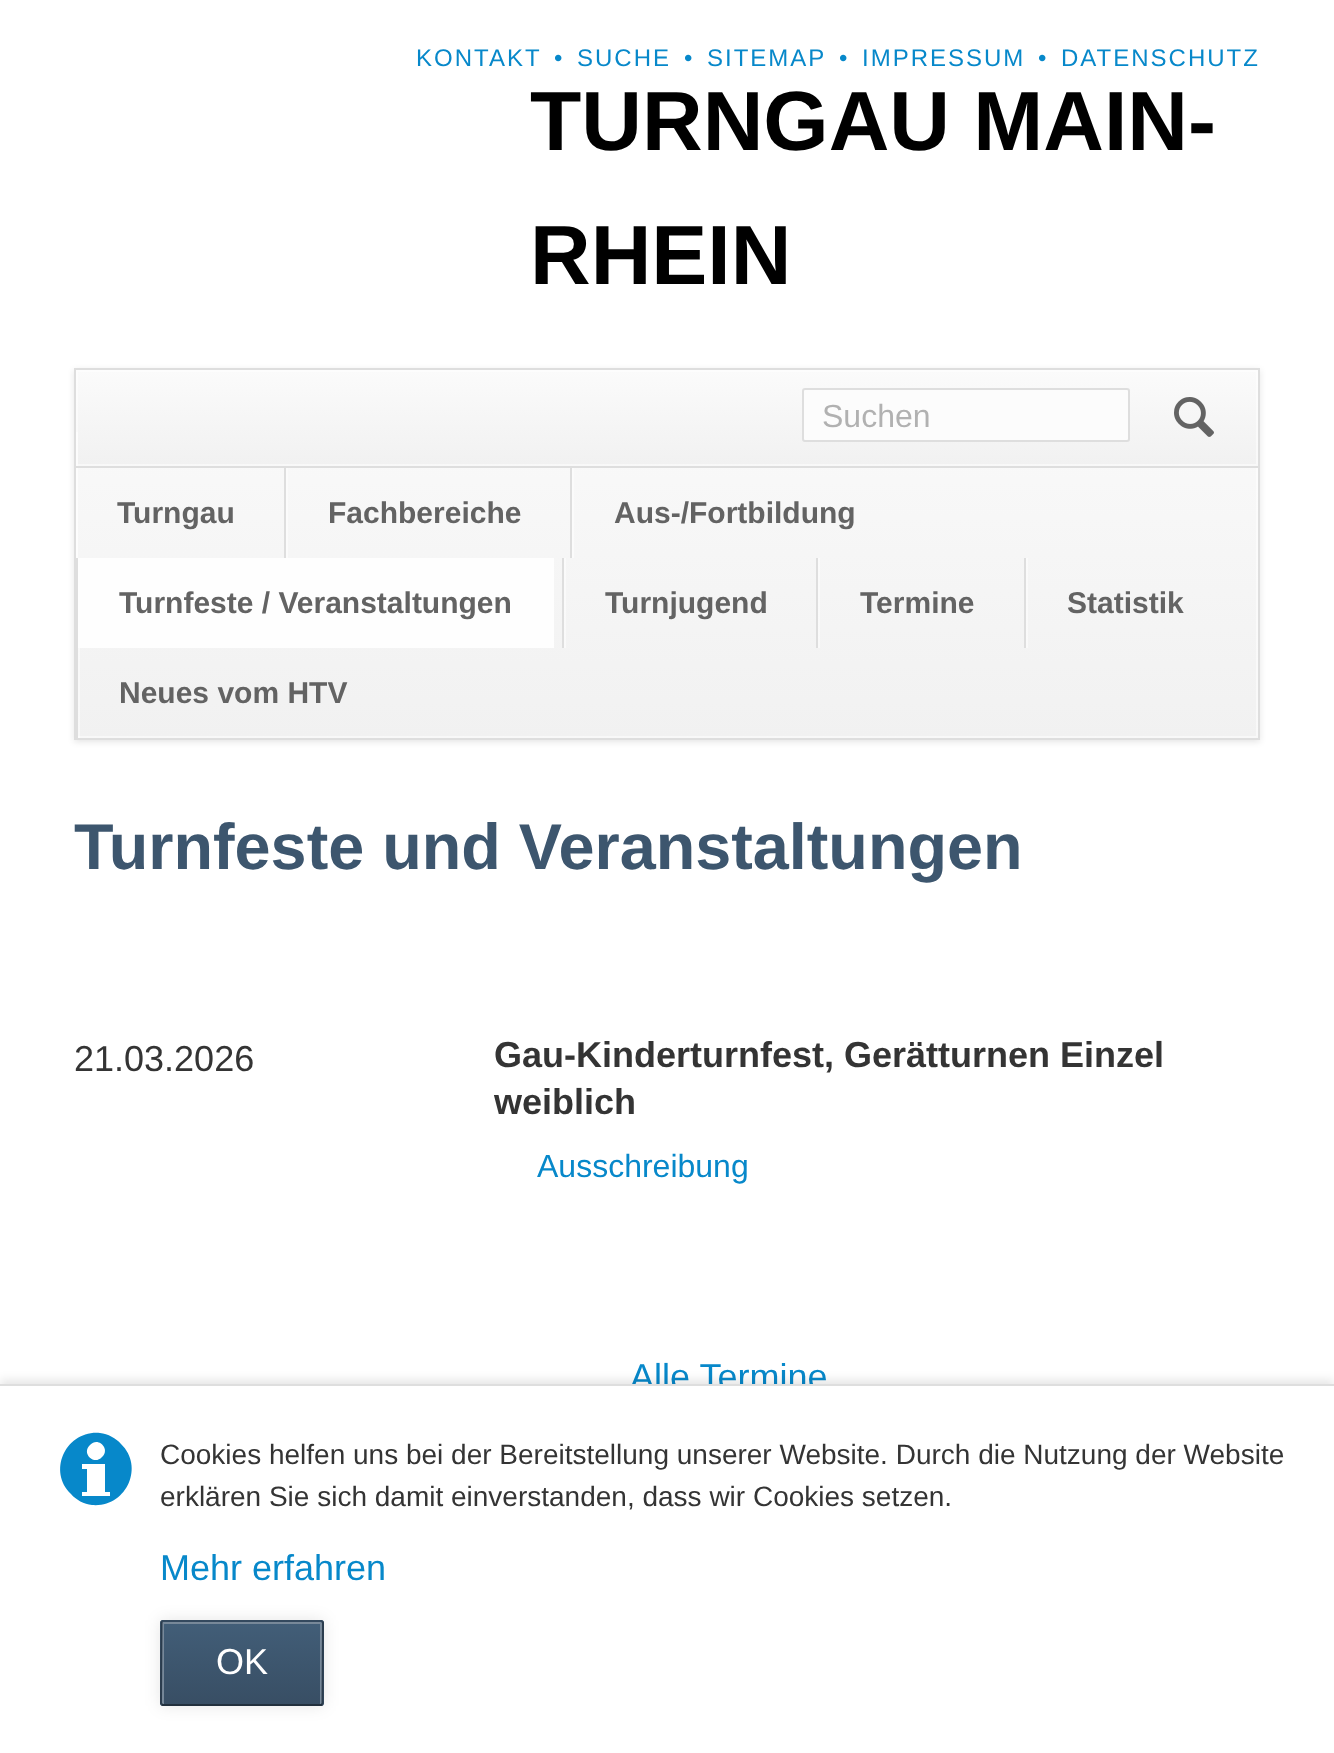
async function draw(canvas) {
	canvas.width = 1334;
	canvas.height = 1753;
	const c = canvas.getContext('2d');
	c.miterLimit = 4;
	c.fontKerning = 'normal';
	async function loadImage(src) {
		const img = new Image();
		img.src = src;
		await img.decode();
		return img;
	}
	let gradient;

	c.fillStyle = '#fff';
	c.fillRect(0, 0, 1334, 1753);
	c.letterSpacing = '2px';
	c.font = '24px Liberation Sans';
	c.fillStyle = '#0788ca';
	for (const [text, x, y] of [
		['KONTAKT', 416, 66],
		['•', 554, 66],
		['SUCHE', 577, 66],
		['•', 684, 66],
		['SITEMAP', 707, 66],
		['•', 839, 66],
		['IMPRESSUM', 862, 66],
		['•', 1038, 66],
		['DATENSCHUTZ', 1061, 66],
	]) {
		c.fillText(text, x, y);
	}
	c.letterSpacing = '0px';
	c.font = 'bold 84px Liberation Sans';
	c.fillStyle = '#000';
	c.fillText('TURNGAU MAIN-', 530, 150);
	c.fillText('RHEIN', 530, 284);
	c.fillStyle = '#0000001a';
	c.filter = 'blur(3px)';
	c.beginPath();
	c.rect(74, 370, 1186, 372);
	c.fill();
	c.filter = 'none';
	gradient = c.createLinearGradient(667, 370, 667, 738);
	gradient.addColorStop(0, '#fbfbfb');
	gradient.addColorStop(1, '#f1f1f1');
	c.fillStyle = gradient;
	c.fillRect(78, 468, 1180, 270);
	gradient = c.createLinearGradient(667, 370, 667, 738);
	gradient.addColorStop(0, '#fdfdfd');
	gradient.addColorStop(1, '#f8f8f8');
	c.fillStyle = gradient;
	c.fillRect(1026, 558, 2, 90);
	c.fillRect(818, 558, 2, 90);
	c.fillRect(564, 558, 2, 90);
	c.strokeStyle = '#ffffff80';
	c.lineWidth = 2;
	c.strokeRect(77, 371, 1180, 366);
	c.strokeStyle = '#dedede';
	c.strokeRect(75, 369, 1184, 370);
	gradient = c.createLinearGradient(667, 370, 667, 466);
	gradient.addColorStop(0, '#fbfbfb');
	gradient.addColorStop(1, '#f1f1f1');
	c.fillStyle = gradient;
	c.fillRect(76, 370, 1182, 96);
	c.strokeStyle = '#ffffff80';
	c.strokeRect(77, 371, 1180, 94);
	c.fillStyle = '#ffffff80';
	c.fillRect(76, 432, 2, 34);
	c.fillStyle = '#dedede';
	c.fillRect(76, 466, 1182, 2);
	c.fillStyle = '#fcfcfc';
	c.beginPath();
	c.roundRect(803, 389, 326, 52, 2);
	c.fill();
	c.strokeStyle = '#dedede';
	c.stroke();
	c.font = '32px Liberation Sans';
	c.fillStyle = '#b1b1b1';
	c.fillText('Suchen', 822, 427);
	c.drawImage(await loadImage('img1.png'), 1174, 397, 40, 40);
	c.fillStyle = '#fdfdfd';
	c.fillRect(76, 468, 2, 90);
	c.font = 'bold 30px Liberation Sans';
	c.fillStyle = '#636363';
	c.fillText('Turngau', 117, 523);
	c.fillStyle = '#fbfbfb';
	c.fillRect(286, 468, 2, 90);
	c.fillStyle = '#dedede';
	c.fillRect(284, 468, 2, 90);
	c.fillStyle = '#636363';
	c.fillText('Fachbereiche', 328, 523);
	c.fillStyle = '#fbfbfb';
	c.fillRect(572, 468, 2, 90);
	c.fillStyle = '#dedede';
	c.fillRect(570, 468, 2, 90);
	c.fillStyle = '#636363';
	c.fillText('Aus-/Fortbildung', 614, 523);
	c.fillStyle = '#fefefe';
	c.fillRect(78, 558, 476, 90);
	c.fillStyle = '#dedede';
	c.fillRect(76, 558, 2, 180);
	c.fillStyle = '#636363';
	c.fillText('Turnfeste / Veranstaltungen', 119, 613);
	c.fillStyle = '#dedede';
	c.fillRect(562, 558, 2, 90);
	c.fillStyle = '#636363';
	c.fillText('Turnjugend', 605, 613);
	c.fillStyle = '#dedede';
	c.fillRect(816, 558, 2, 90);
	c.fillStyle = '#636363';
	c.fillText('Termine', 860, 613);
	c.fillStyle = '#dedede';
	c.fillRect(1024, 558, 2, 90);
	c.fillStyle = '#636363';
	c.fillText('Statistik', 1067, 613);
	c.fillStyle = '#ffffff80';
	c.fillRect(78, 648, 2, 90);
	c.fillStyle = '#636363';
	c.fillText('Neues vom HTV', 119, 703);
	c.font = 'bold 64.75px Liberation Sans';
	c.fillStyle = '#3d566e';
	c.fillText('Turnfeste und Veranstaltungen', 74, 869);
	c.font = '36px Liberation Sans';
	c.fillStyle = '#343434';
	c.fillText('21.03.2026', 74, 1071);
	c.font = 'bold 36px Liberation Sans';
	c.fillText('Gau-Kinderturnfest, Gerätturnen Einzel', 494, 1067);
	c.fillText('weiblich', 494, 1114);
	c.font = '32px Liberation Sans';
	c.fillStyle = '#0788ca';
	c.fillText('Ausschreibung', 537, 1177);
	c.font = '36px Liberation Sans';
	c.fillText('Alle Termine', 630, 1389);
	c.fillStyle = '#0000001a';
	c.filter = 'blur(5px)';
	c.beginPath();
	c.rect(0, 1380, 1334, 370);
	c.fill();
	c.filter = 'none';
	c.fillStyle = '#fff';
	c.fillRect(0, 1386, 1334, 367);
	c.fillStyle = '#dedede';
	c.fillRect(0, 1384, 1334, 2);
	c.fillStyle = '#0788ca';
	c.beginPath();
	c.moveTo(121, 1444);
	c.bezierCurveTo(116, 1438, 108, 1434, 100, 1433);
	c.bezierCurveTo(66, 1430, 47, 1471, 71, 1494);
	c.bezierCurveTo(76, 1500, 84, 1504, 92, 1505);
	c.bezierCurveTo(126, 1508, 145, 1467, 121, 1444);
	c.closePath();
	c.moveTo(90, 1445);
	c.bezierCurveTo(98, 1436, 111, 1449, 102, 1457);
	c.bezierCurveTo(94, 1466, 81, 1453, 90, 1445);
	c.closePath();
	c.moveTo(110, 1496);
	c.lineTo(82, 1496);
	c.lineTo(82, 1492);
	c.lineTo(87, 1492);
	c.lineTo(87, 1469);
	c.lineTo(82, 1469);
	c.lineTo(82, 1464);
	c.lineTo(105, 1464);
	c.lineTo(105, 1492);
	c.lineTo(110, 1492);
	c.closePath();
	c.fill();
	c.font = '28px Liberation Sans';
	c.fillStyle = '#343434';
	c.fillText('Cookies helfen uns bei der Bereitstellung unserer Website. Durch die Nutzung der Website', 160, 1464);
	c.fillText('erklären Sie sich damit einverstanden, dass wir Cookies setzen.', 160, 1506);
	c.font = '36px Liberation Sans';
	c.fillStyle = '#0788ca';
	c.fillText('Mehr erfahren', 160, 1580);
	c.fillStyle = '#0000001a';
	c.filter = 'blur(8px)';
	c.beginPath();
	c.roundRect(160, 1620, 164, 86, 3);
	c.fill();
	c.filter = 'none';
	c.save();
	c.beginPath();
	c.roundRect(160, 1620, 164, 86, 3);
	c.clip();
	gradient = c.createLinearGradient(242, 1540, 242, 1622);
	gradient.addColorStop(0, '#425e78');
	gradient.addColorStop(1, '#384e64');
	c.fillStyle = gradient;
	c.fillRect(160, 1620, 164, 2);
	gradient = c.createLinearGradient(242, 1622, 242, 1704);
	gradient.addColorStop(0, '#425e78');
	gradient.addColorStop(1, '#384e64');
	c.fillStyle = gradient;
	c.fillRect(160, 1622, 164, 82);
	gradient = c.createLinearGradient(242, 1704, 242, 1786);
	gradient.addColorStop(0, '#425e78');
	gradient.addColorStop(1, '#384e64');
	c.fillStyle = gradient;
	c.fillRect(160, 1704, 164, 2);
	c.restore();
	c.fillStyle = '#789';
	c.beginPath();
	c.moveTo(319, 1704);
	c.bezierCurveTo(326, 1704, 322, 1699, 322, 1690);
	c.lineTo(322, 1636);
	c.bezierCurveTo(322, 1627, 326, 1622, 319, 1622);
	c.bezierCurveTo(320, 1622, 320, 1622, 320, 1623);
	c.lineTo(320, 1703);
	c.bezierCurveTo(320, 1704, 320, 1704, 319, 1704);
	c.closePath();
	c.fill();
	c.beginPath();
	c.moveTo(165, 1624);
	c.lineTo(322, 1624);
	c.lineTo(322, 1623);
	c.bezierCurveTo(322, 1622, 322, 1622, 321, 1622);
	c.lineTo(163, 1622);
	c.bezierCurveTo(162, 1622, 162, 1622, 162, 1623);
	c.lineTo(162, 1703);
	c.bezierCurveTo(162, 1704, 162, 1704, 163, 1704);
	c.lineTo(164, 1704);
	c.lineTo(164, 1625);
	c.bezierCurveTo(164, 1624, 164, 1624, 165, 1624);
	c.closePath();
	c.fill();
	c.beginPath();
	c.moveTo(161.5, 1621.5);
	c.lineTo(163, 1621);
	c.lineTo(321, 1621);
	c.lineTo(322.5, 1621.5);
	c.strokeStyle = '#34495e';
	c.stroke();
	c.beginPath();
	c.moveTo(322.5, 1621.5);
	c.lineTo(323, 1623);
	c.lineTo(322.5, 1704.5);
	c.strokeStyle = '#2b3c4d';
	c.stroke();
	c.beginPath();
	c.moveTo(322.5, 1704.5);
	c.lineTo(321, 1705);
	c.lineTo(163, 1705);
	c.lineTo(161.5, 1704.5);
	c.strokeStyle = '#22303d';
	c.stroke();
	c.beginPath();
	c.moveTo(161.5, 1704.5);
	c.lineTo(161, 1703);
	c.lineTo(161.5, 1621.5);
	c.strokeStyle = '#2b3c4d';
	c.stroke();
	c.fillStyle = '#fff';
	c.fillText('OK', 216, 1674);
}

draw(document.querySelector('canvas'));
